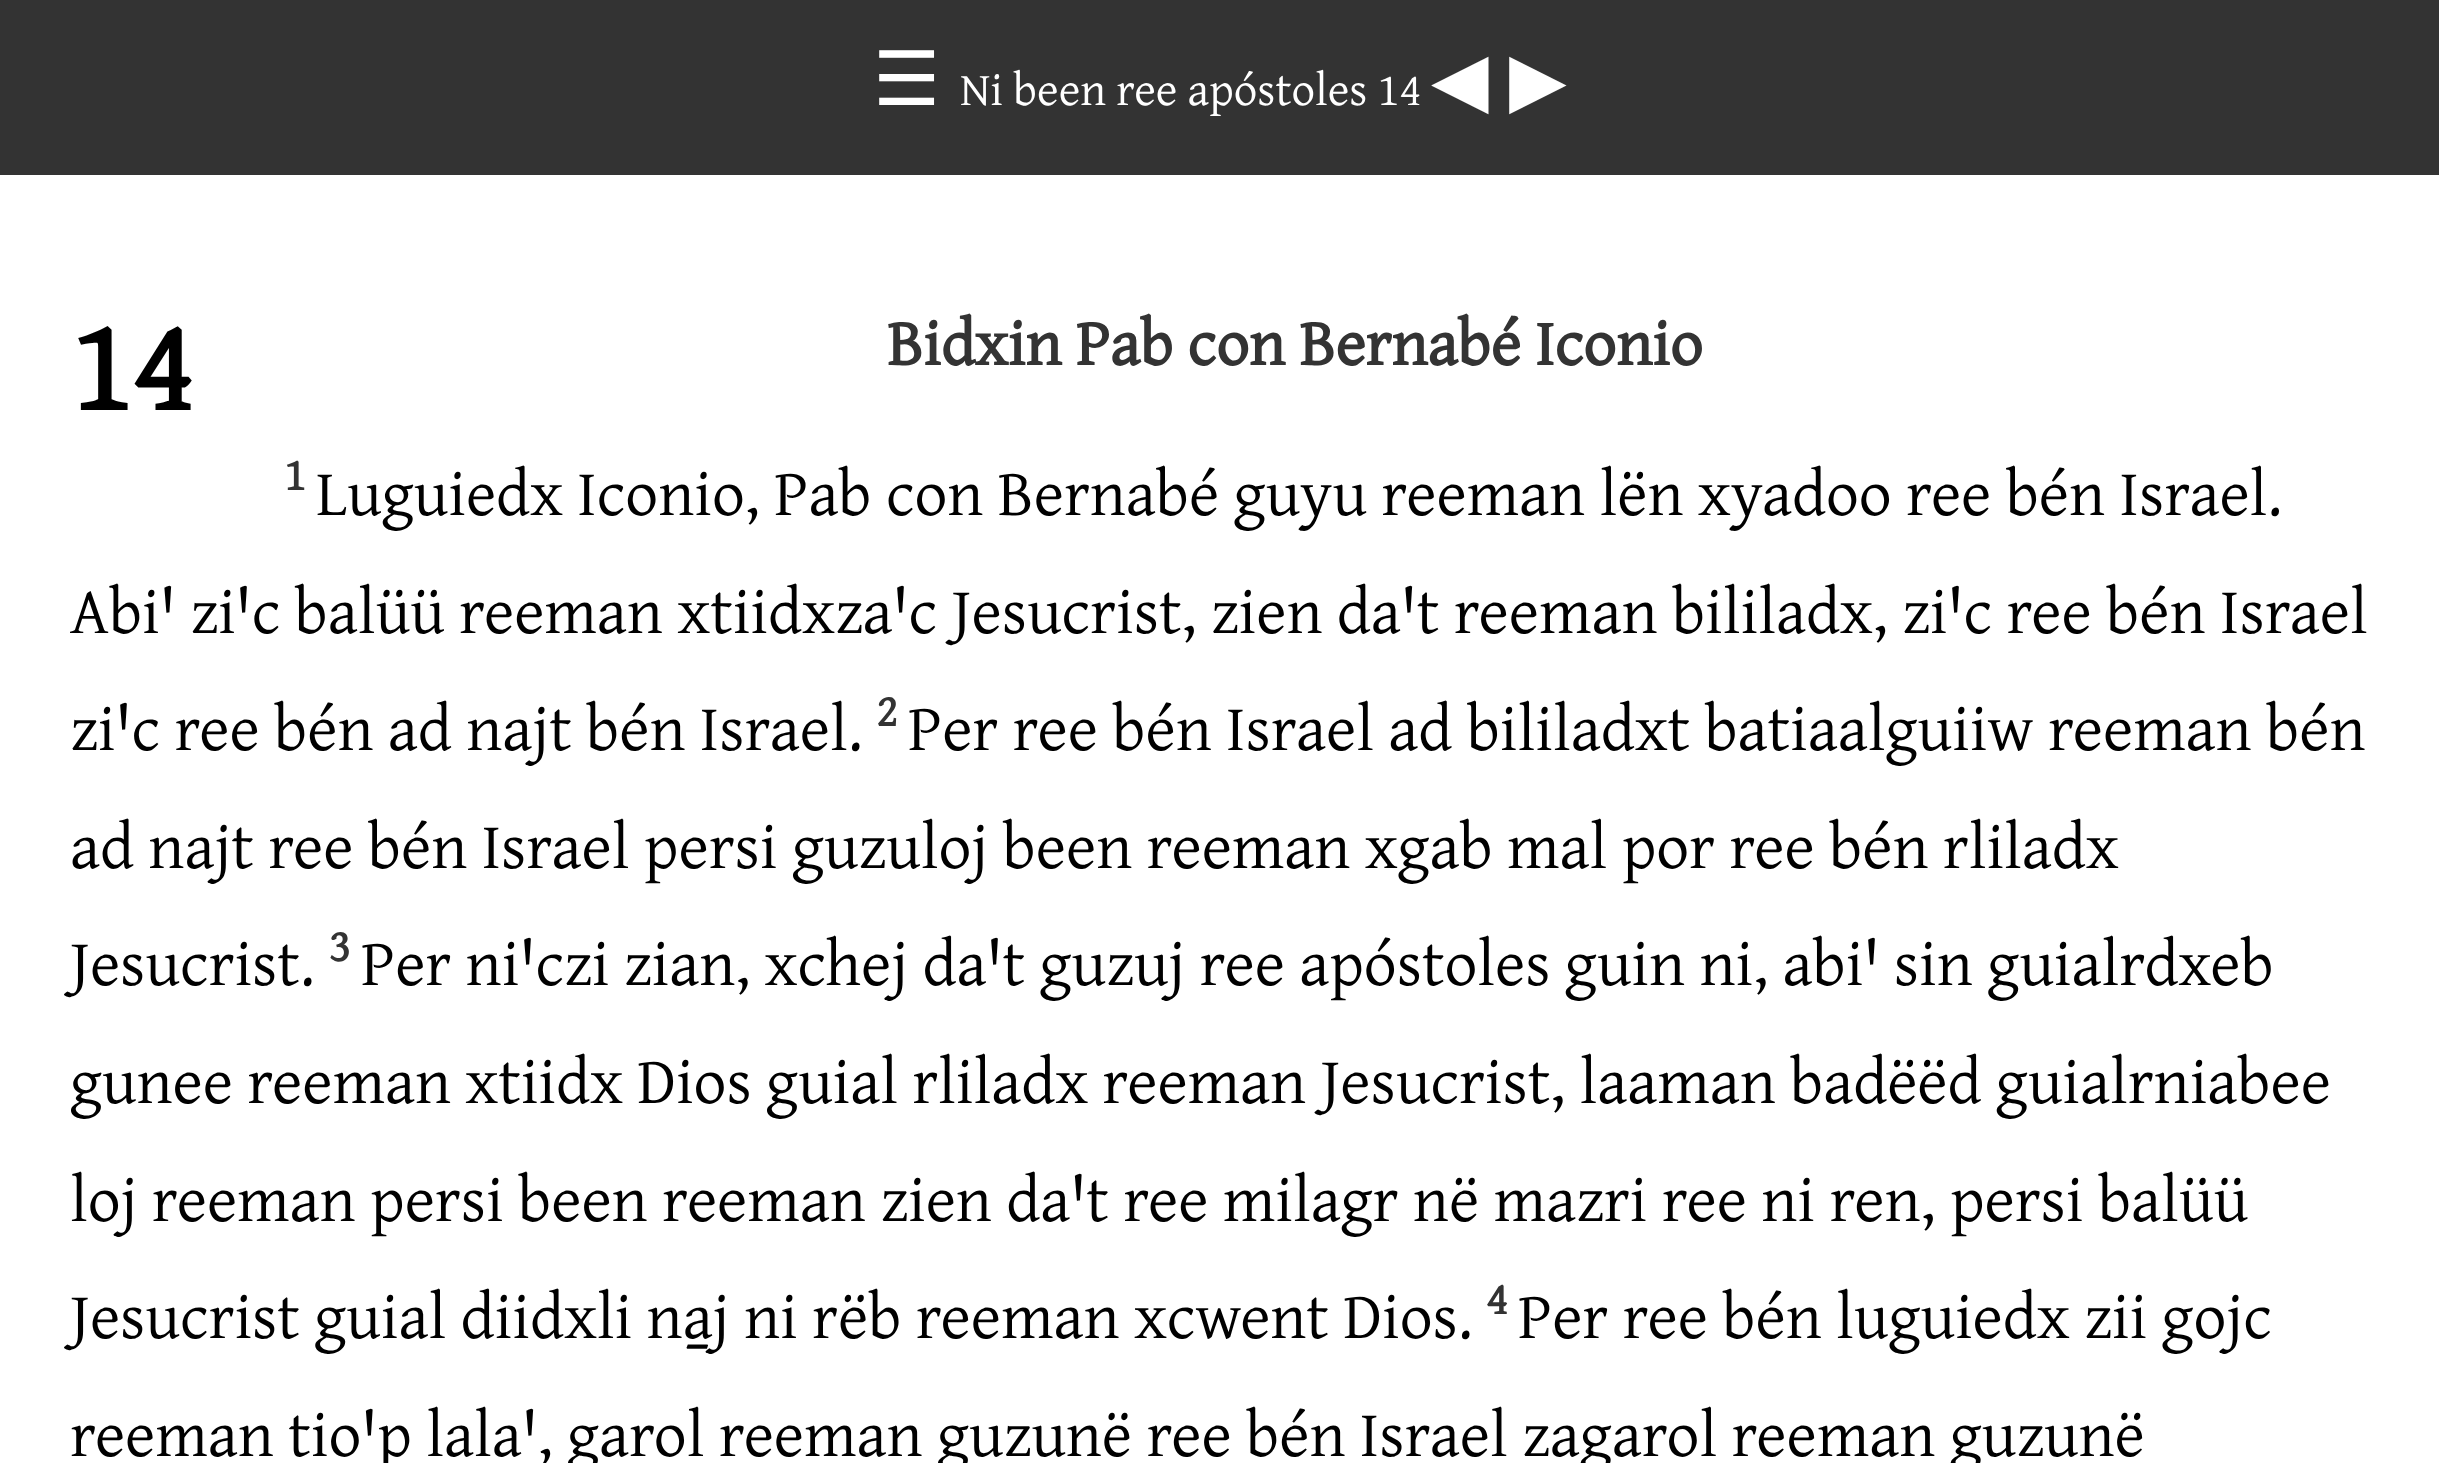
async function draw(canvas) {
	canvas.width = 2439;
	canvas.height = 1463;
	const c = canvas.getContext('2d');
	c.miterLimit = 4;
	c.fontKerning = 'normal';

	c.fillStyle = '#fff';
	c.fillRect(0, 0, 2439, 1463);
	c.fillStyle = '#333';
	c.fillRect(0, 0, 2439, 175);
	c.font = '75px DejaVu Sans';
	c.fillStyle = '#fff';
	c.fillText('☰', 873, 105);
	c.font = '46.75px Gentium Plus';
	c.fillText('Ni been ree apóstoles 14', 960, 105);
	c.font = '75px DejaVu Sans';
	c.fillText('◀', 1431, 105);
	c.fillText('▶', 1509, 105);
	c.font = 'bold 131px Gentium Plus';
	c.fillStyle = '#000';
	c.fillText('14', 70, 410);
	c.font = 'bold 65.35px Gentium Plus';
	c.fillStyle = '#333';
	c.fillText('Bidxin Pab con Bernabé Iconio', 887, 365);
	c.font = 'bold 46px Gentium Plus';
	c.fillText('1', 284, 490);
	c.font = '65.35px Gentium Plus';
	c.fillStyle = '#000';
	for (const [text, x, y] of [
		['Luguiedx Iconio, Pab con Bernabé guyu reeman lën xyadoo ree bén Israel.', 316, 515],
		['Abiꞌ ziꞌc balüü reeman xtiidxzaꞌc Jesucrist, zien daꞌt reeman bililadx, ziꞌc ree bén Israel', 70, 633],
		['ziꞌc ree bén ad najt bén Israel.', 70, 750],
	]) {
		c.fillText(text, x, y);
	}
	c.font = 'bold 46px Gentium Plus';
	c.fillStyle = '#333';
	c.fillText('2', 876, 726);
	c.font = '65.35px Gentium Plus';
	c.fillStyle = '#000';
	for (const [text, x, y] of [
		['Per ree bén Israel ad bililadxt batiaalguiiw reeman bén', 908, 750],
		['ad najt ree bén Israel persi guzuloj been reeman xgab mal por ree bén rliladx', 70, 868],
		['Jesucrist.', 70, 985],
	]) {
		c.fillText(text, x, y);
	}
	c.font = 'bold 46px Gentium Plus';
	c.fillStyle = '#333';
	c.fillText('3', 329, 961);
	c.font = '65.35px Gentium Plus';
	c.fillStyle = '#000';
	c.fillText('Per niꞌczi zian, xchej daꞌt guzuj ree apóstoles guin ni, abiꞌ sin guialrdxeb', 361, 985);
	c.wordSpacing = '-0.1px';
	c.fillText('gunee reeman xtiidx Dios guial rliladx reeman Jesucrist, laaman badëëd guialrniabee', 70, 1103);
	c.wordSpacing = '0px';
	c.fillText('loj reeman persi been reeman zien daꞌt ree milagr në mazri ree ni ren, persi balüü', 70, 1221);
	c.fillText('Jesucrist guial diidxli na̱j ni rëb reeman xcwent Dios.', 70, 1338);
	c.font = 'bold 46px Gentium Plus';
	c.fillStyle = '#333';
	c.fillText('4', 1486, 1314);
	c.font = '65.35px Gentium Plus';
	c.fillStyle = '#000';
	c.fillText('Per ree bén luguiedx zii gojc', 1518, 1338);
	c.fillText('reeman tioꞌp lalaꞌ, garol reeman guzunë ree bén Israel zagarol reeman guzunë', 70, 1456);
}

draw(document.querySelector('canvas'));
